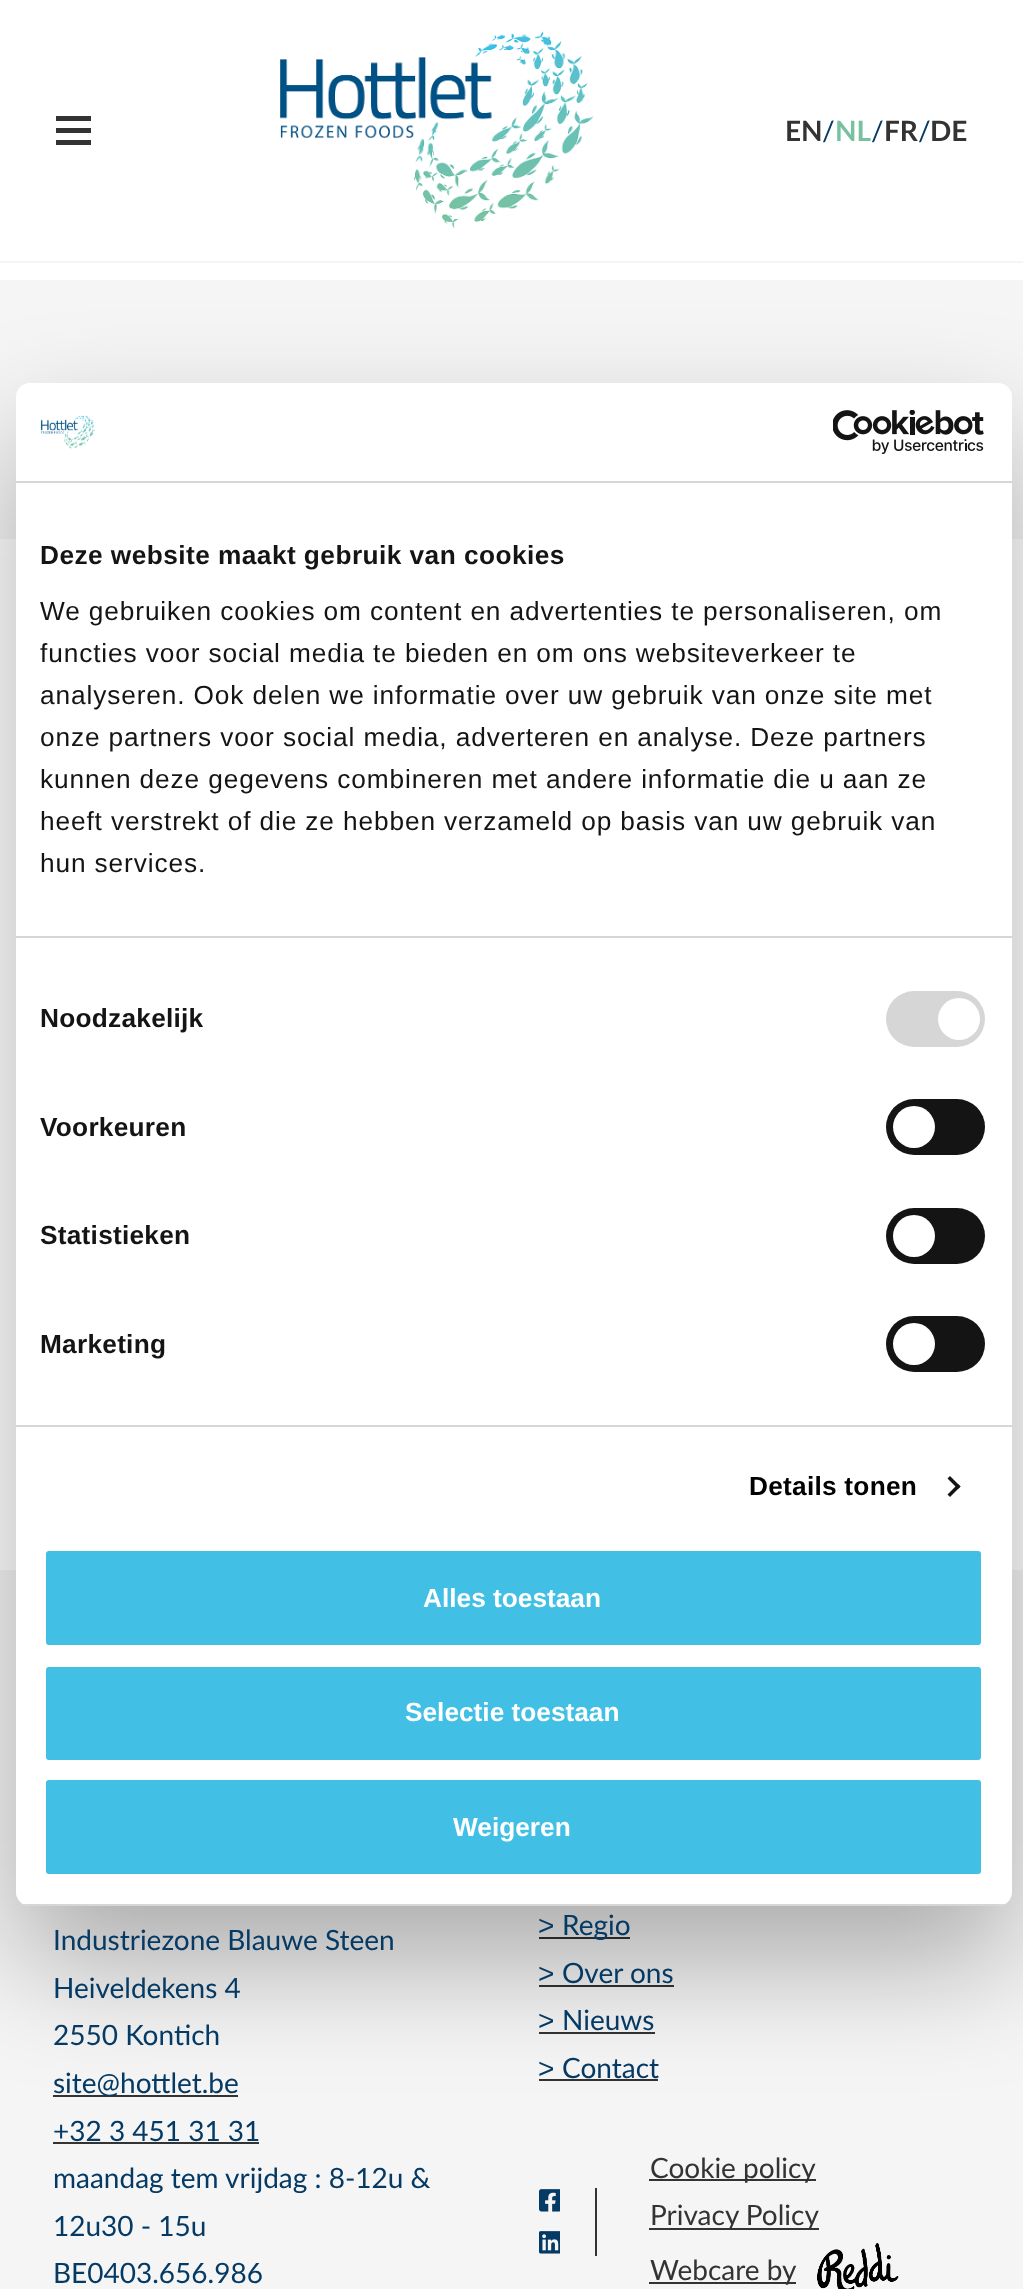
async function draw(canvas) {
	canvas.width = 1023;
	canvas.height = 2289;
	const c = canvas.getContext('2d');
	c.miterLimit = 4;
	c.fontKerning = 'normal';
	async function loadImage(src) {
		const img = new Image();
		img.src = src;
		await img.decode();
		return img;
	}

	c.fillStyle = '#fff';
	c.fillRect(0, 0, 1023, 2289);
	for (const [x, y, w, h, color] of [
		[0, 261, 1023, 2, '#f5f5f5'],
		[56, 116, 35, 5, '#333'],
		[56, 128, 35, 5, '#333'],
		[56, 140, 35, 5, '#333'],
	]) {
		c.fillStyle = color;
		c.fillRect(x, y, w, h);
	}
	c.drawImage(await loadImage('img1.png'), 280, 31, 314, 197);
	c.font = 'bold 28px Lato';
	c.fillText('EN', 785, 141);
	c.font = '28px Lato';
	c.fillStyle = '#053a65';
	c.fillText('/', 822, 141);
	c.font = 'bold 28px Lato';
	c.fillStyle = '#77c1a0';
	c.fillText('NL', 835, 141);
	c.font = '28px Lato';
	c.fillStyle = '#053a65';
	c.fillText('/', 871, 141);
	c.font = 'bold 28px Lato';
	c.fillStyle = '#333';
	c.fillText('FR', 884, 141);
	c.font = '28px Lato';
	c.fillStyle = '#053a65';
	c.fillText('/', 918, 141);
	c.font = 'bold 28px Lato';
	c.fillStyle = '#333';
	c.fillText('DE', 930, 141);
	for (const [x, y, w, h, color] of [
		[0, 280, 1023, 259, '#f5f5f5'],
		[0, 1570, 1023, 719, '#f5f5f5'],
		[53, 2095, 185, 2, '#333'],
		[539, 1937, 91, 2, '#333'],
		[539, 1985, 135, 2, '#333'],
		[539, 2032, 116, 2, '#333'],
		[539, 2079, 119, 2, '#333'],
	]) {
		c.fillStyle = color;
		c.fillRect(x, y, w, h);
	}
	c.fillStyle = '#0000004d';
	c.filter = 'blur(59.5px)';
	c.beginPath();
	c.roundRect(16, 439, 996, 1523, 14);
	c.fill();
	c.filter = 'none';
	c.fillStyle = '#fff';
	c.beginPath();
	c.roundRect(16, 383, 996, 1523, 14);
	c.fill();
	c.fillStyle = '#d6d6d6';
	c.fillRect(16, 481, 996, 2);
	c.drawImage(await loadImage('img2.png'), 40, 415, 55, 34);
	c.drawImage(await loadImage('img3.png'), 833, 410, 151, 44);
	c.fillRect(16, 936, 996, 2);
	c.letterSpacing = '0.45px';
	c.font = 'bold 26.25px Liberation Sans';
	c.fillStyle = '#141414';
	c.fillText('Deze website maakt gebruik van cookies', 40, 564);
	c.letterSpacing = '0.88px';
	c.font = '26.25px Liberation Sans';
	for (const [text, x, y] of [
		['We gebruiken cookies om content en advertenties te personaliseren, om', 40, 620],
		['functies voor social media te bieden en om ons websiteverkeer te', 40, 662],
		['analyseren. Ook delen we informatie over uw gebruik van onze site met', 40, 704],
		['onze partners voor social media, adverteren en analyse. Deze partners', 40, 746],
		['kunnen deze gegevens combineren met andere informatie die u aan ze', 40, 788],
		['heeft verstrekt of die ze hebben verzameld op basis van uw gebruik van', 40, 830],
		['hun services.', 40, 872],
	]) {
		c.fillText(text, x, y);
	}
	c.fillStyle = '#d6d6d6';
	c.fillRect(16, 1425, 996, 2);
	c.letterSpacing = '0.25px';
	c.font = 'bold 26.25px Liberation Sans';
	c.fillStyle = '#141414';
	c.fillText('Noodzakelijk', 40, 1027);
	c.fillStyle = '#d6d6d6';
	c.beginPath();
	c.roundRect(886, 991, 99, 56, 28);
	c.fill();
	c.fillStyle = '#fff';
	c.beginPath();
	c.arc(959, 1019, 21, 0, 2 * Math.PI);
	c.fill();
	c.fillStyle = '#141414';
	c.fillText('Voorkeuren', 40, 1136);
	c.beginPath();
	c.roundRect(886, 1099, 99, 56, 28);
	c.fill();
	c.fillStyle = '#fff';
	c.beginPath();
	c.arc(914, 1127, 21, 0, 2 * Math.PI);
	c.fill();
	c.fillStyle = '#141414';
	c.fillText('Statistieken', 40, 1244);
	c.beginPath();
	c.roundRect(886, 1208, 99, 56, 28);
	c.fill();
	c.fillStyle = '#fff';
	c.beginPath();
	c.arc(914, 1236, 21, 0, 2 * Math.PI);
	c.fill();
	c.fillStyle = '#141414';
	c.fillText('Marketing', 40, 1353);
	c.beginPath();
	c.roundRect(886, 1316, 99, 56, 28);
	c.fill();
	c.fillStyle = '#fff';
	c.beginPath();
	c.arc(914, 1344, 21, 0, 2 * Math.PI);
	c.fill();
	c.fillStyle = '#000';
	c.fillText('Details tonen', 749, 1495);
	c.fillStyle = '#141414';
	c.beginPath();
	c.moveTo(950, 1476);
	c.lineTo(960.5, 1486.5);
	c.lineTo(958, 1489);
	c.lineTo(947.5, 1478.5);
	c.closePath();
	c.fill();
	c.beginPath();
	c.moveTo(958, 1484);
	c.lineTo(960.5, 1486.5);
	c.lineTo(950, 1497);
	c.lineTo(947.5, 1494.5);
	c.closePath();
	c.fill();
	c.save();
	c.beginPath();
	c.roundRect(16, 383, 996, 1523, 14);
	c.clip();
	c.fillStyle = '#d6d6d6';
	c.fillRect(16, 1904, 996, 2);
	c.restore();
	c.fillStyle = '#41bfe5';
	c.beginPath();
	c.roundRect(44, 1549, 939, 98, 5);
	c.fill();
	c.strokeStyle = '#fff';
	c.lineWidth = 4;
	c.stroke();
	c.letterSpacing = '0px';
	c.fillStyle = '#fff';
	c.fillText('Alles toestaan', 423, 1607);
	c.fillStyle = '#41bfe5';
	c.beginPath();
	c.roundRect(44, 1665, 939, 97, 5);
	c.fill();
	c.stroke();
	c.fillStyle = '#fff';
	c.fillText('Selectie toestaan', 405, 1721);
	c.fillStyle = '#41bfe5';
	c.beginPath();
	c.roundRect(44, 1778, 939, 98, 5);
	c.fill();
	c.stroke();
	c.fillStyle = '#fff';
	c.fillText('Weigeren', 453, 1836);
	c.font = '28px Lato';
	c.fillStyle = '#053a65';
	for (const [text, x, y] of [
		['Industriezone Blauwe Steen', 53, 1950],
		['Heiveldekens 4', 53, 1998],
		['2550 Kontich', 53, 2045],
		['site@hottlet.be', 53, 2093],
		['+32 3 451 31 31', 53, 2141],
	]) {
		c.fillText(text, x, y);
	}
	c.fillStyle = '#333';
	c.fillRect(53, 2142, 206, 2);
	c.fillStyle = '#053a65';
	for (const [text, x, y] of [
		['maandag tem vrijdag : 8-12u &', 53, 2188],
		['12u30 - 15u', 53, 2236],
		['BE0403.656.986', 53, 2283],
	]) {
		c.fillText(text, x, y);
	}
	c.font = '28px Liberation Sans';
	c.fillText('˃', 538, 1935);
	c.font = '28px Lato';
	c.fillText('Regio', 562, 1935);
	c.font = '28px Liberation Sans';
	c.fillText('˃', 538, 1983);
	c.font = '28px Lato';
	c.fillText('Over ons', 562, 1983);
	c.font = '28px Liberation Sans';
	c.fillText('˃', 538, 2030);
	c.font = '28px Lato';
	c.fillText('Nieuws', 562, 2030);
	c.font = '28px Liberation Sans';
	c.fillText('˃', 538, 2078);
	c.font = '28px Lato';
	c.fillText('Contact', 562, 2078);
	c.fillStyle = '#333';
	c.fillRect(595, 2188, 2, 68);
	c.drawImage(await loadImage('img4.png'), 539, 2189, 21, 23);
	c.drawImage(await loadImage('img5.png'), 539, 2231, 21, 23);
	c.fillRect(649, 2179, 167, 2);
	c.fillText('Cookie policy', 650, 2178);
	c.fillRect(649, 2228, 170, 2);
	c.fillText('Privacy Policy', 650, 2225);
	c.fillRect(649, 2282, 147, 2);
	c.fillText('Webcare by', 650, 2280);
	c.drawImage(await loadImage('img6.png'), 817, 2243, 82, 46);
}

draw(document.querySelector('canvas'));
